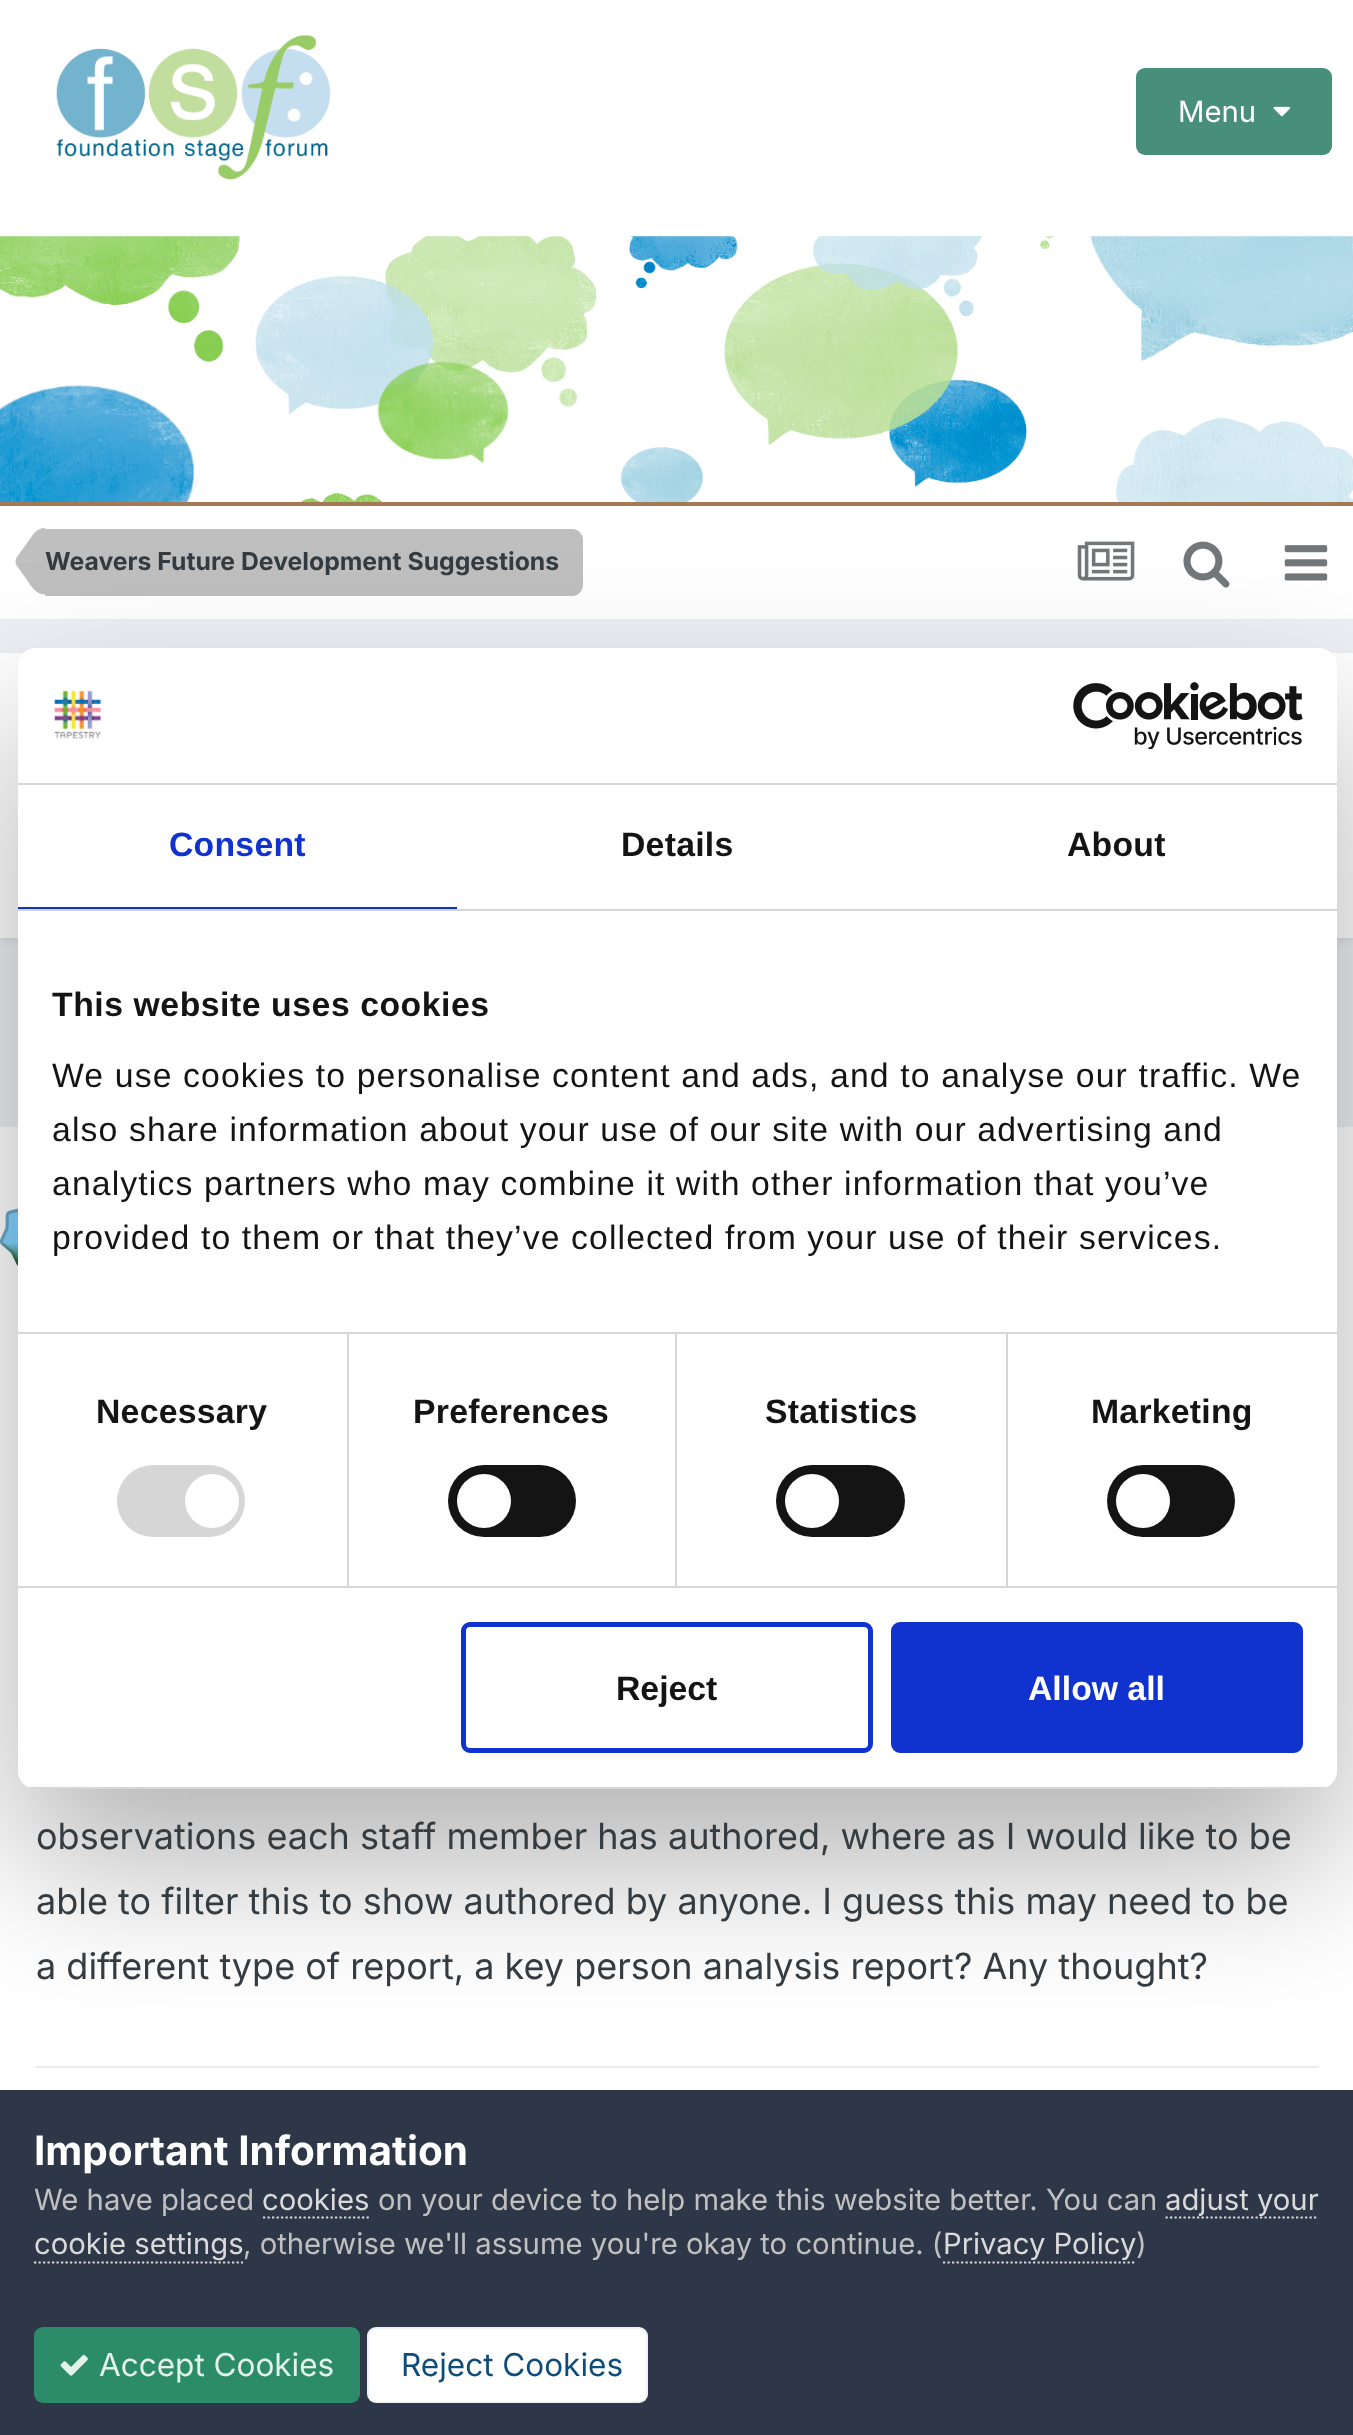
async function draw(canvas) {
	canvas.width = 1353;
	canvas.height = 2435;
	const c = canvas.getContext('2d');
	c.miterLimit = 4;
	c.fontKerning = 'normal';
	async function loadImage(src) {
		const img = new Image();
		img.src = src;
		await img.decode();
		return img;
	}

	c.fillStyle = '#edf0f4';
	c.fillRect(0, 0, 1353, 2435);
	c.fillStyle = '#fff';
	c.fillRect(0, 0, 1353, 236);
	c.drawImage(await loadImage('img1.png'), 56, 35, 275, 145);
	c.fillStyle = '#478f79';
	c.beginPath();
	c.roundRect(1136, 68, 196, 87, 9);
	c.fill();
	c.font = '29.25px Inter';
	c.fillStyle = '#fff';
	c.fillText('Menu', 1178, 122);
	c.drawImage(await loadImage('img2.png'), 1273, 106, 18, 11);
	c.drawImage(await loadImage('img3.png'), 0, 236, 1353, 266);
	c.fillStyle = '#a47956';
	c.fillRect(0, 502, 1353, 4);
	c.fillStyle = '#fff';
	c.fillRect(0, 506, 1353, 113);
	c.fillStyle = '#bfbfbf';
	c.beginPath();
	c.roundRect(45, 529, 538, 67, [0, 11, 11, 0]);
	c.fill();
	c.beginPath();
	c.moveTo(16, 564.5);
	c.lineTo(15.5, 561.5);
	c.lineTo(45, 561.5);
	c.lineTo(45, 594.5);
	c.bezierCurveTo(35.5, 594.5, 30.5, 585, 26, 578.5);
	c.closePath();
	c.fill();
	c.fillStyle = '#00000040';
	c.beginPath();
	c.moveTo(45, 528);
	c.lineTo(45, 561.5);
	c.lineTo(15.5, 561.5);
	c.bezierCurveTo(15.5, 559.5, 16, 558, 17, 557);
	c.lineTo(32, 536);
	c.bezierCurveTo(35.5, 530.5, 40, 528, 45, 528);
	c.closePath();
	c.fill();
	c.font = 'bold 24.75px Inter';
	c.fillStyle = '#353c41';
	c.fillText('Weavers Future Development Suggestions', 45, 570);
	c.drawImage(await loadImage('img4.png'), 1077, 541, 58, 40);
	c.drawImage(await loadImage('img5.png'), 1183, 541, 47, 47);
	c.drawImage(await loadImage('img6.png'), 1284, 545, 44, 36);
	c.fillStyle = '#2d37481a';
	c.filter = 'blur(4.5px)';
	c.beginPath();
	c.rect(2, 659, 1350, 282);
	c.fill();
	c.filter = 'none';
	c.fillStyle = '#fff';
	c.fillRect(0, 653, 1353, 285);
	c.fillRect(0, 1127, 1353, 963);
	c.drawImage(await loadImage('img9.png'), 0, 1201, 18, 66);
	c.fillStyle = '#ebecec';
	c.fillRect(36, 2066, 1283, 2);
	c.fillStyle = '#2d3748';
	c.fillRect(0, 2090, 1353, 345);
	c.fillStyle = '#0000004d';
	c.filter = 'blur(76.5px)';
	c.beginPath();
	c.roundRect(18, 720, 1319, 1141, 18);
	c.fill();
	c.filter = 'none';
	c.fillStyle = '#fff';
	c.beginPath();
	c.roundRect(18, 648, 1319, 1141, 18);
	c.fill();
	c.fillStyle = '#d6d6d6';
	c.fillRect(18, 783, 1319, 2);
	c.drawImage(await loadImage('img7.png'), 54, 690, 47, 49);
	c.drawImage(await loadImage('img8.png'), 1073, 682, 230, 67);
	c.fillRect(18, 909, 1319, 2);
	c.fillStyle = '#1032cf';
	c.fillRect(18, 907, 439, 2);
	c.letterSpacing = '0.25px';
	c.font = 'bold 33.75px Liberation Sans';
	c.fillText('Consent', 169, 856);
	c.fillStyle = '#141414';
	c.fillText('Details', 621, 856);
	c.fillText('About', 1067, 856);
	c.fillStyle = '#d6d6d6';
	c.fillRect(18, 1332, 1319, 2);
	c.letterSpacing = '0.55px';
	c.fillStyle = '#141414';
	c.fillText('This website uses cookies', 52, 1016);
	c.letterSpacing = '1.12px';
	c.font = '33.75px Liberation Sans';
	for (const [text, x, y] of [
		['We use cookies to personalise content and ads, and to analyse our traffic. We', 52, 1087],
		['also share information about your use of our site with our advertising and', 52, 1141],
		['analytics partners who may combine it with other information that you’ve', 52, 1195],
		['provided to them or that they’ve collected from your use of their services.', 52, 1249],
	]) {
		c.fillText(text, x, y);
	}
	c.fillStyle = '#d6d6d6';
	c.fillRect(18, 1586, 1319, 2);
	c.fillRect(347, 1334, 2, 252);
	c.letterSpacing = '0.25px';
	c.font = 'bold 33.75px Liberation Sans';
	c.fillStyle = '#141414';
	c.fillText('Necessary', 96, 1423);
	c.fillStyle = '#d6d6d6';
	c.beginPath();
	c.roundRect(117, 1465, 128, 72, 36);
	c.fill();
	c.fillStyle = '#fff';
	c.beginPath();
	c.arc(212, 1501, 27, 0, 2 * Math.PI);
	c.fill();
	c.fillStyle = '#d6d6d6';
	c.fillRect(675, 1334, 2, 252);
	c.fillStyle = '#141414';
	c.fillText('Preferences', 413, 1423);
	c.beginPath();
	c.roundRect(448, 1465, 128, 72, 36);
	c.fill();
	c.fillStyle = '#fff';
	c.beginPath();
	c.arc(484, 1501, 27, 0, 2 * Math.PI);
	c.fill();
	c.fillStyle = '#d6d6d6';
	c.fillRect(1006, 1334, 2, 252);
	c.fillStyle = '#141414';
	c.fillText('Statistics', 765, 1423);
	c.beginPath();
	c.roundRect(776, 1465, 129, 72, 36);
	c.fill();
	c.fillStyle = '#fff';
	c.beginPath();
	c.arc(812, 1501, 27, 0, 2 * Math.PI);
	c.fill();
	c.fillStyle = '#141414';
	c.fillText('Marketing', 1091, 1423);
	c.beginPath();
	c.roundRect(1107, 1465, 128, 72, 36);
	c.fill();
	c.fillStyle = '#fff';
	c.beginPath();
	c.arc(1143, 1501, 27, 0, 2 * Math.PI);
	c.fill();
	c.save();
	c.beginPath();
	c.roundRect(18, 648, 1319, 1141, 18);
	c.clip();
	c.fillStyle = '#d6d6d6';
	c.fillRect(28, 1787, 1299, 2);
	c.restore();
	c.beginPath();
	c.roundRect(463.5, 1624.5, 407, 126, 6.5);
	c.strokeStyle = '#1032cf';
	c.lineWidth = 5;
	c.stroke();
	c.letterSpacing = '0px';
	c.fillStyle = '#141414';
	c.fillText('Reject', 616, 1700);
	c.fillStyle = '#1032cf';
	c.beginPath();
	c.roundRect(893.5, 1624.5, 407, 126, 6.5);
	c.fill();
	c.stroke();
	c.fillStyle = '#fff';
	c.fillText('Allow all', 1028, 1700);
	c.font = '36px Inter';
	c.fillStyle = '#353c41';
	for (const [text, x, y] of [
		['observations each staff member has authored, where as I would like to be', 36, 1849],
		['able to filter this to show authored by anyone. I guess this may need to be', 36, 1914],
		['a different type of report, a key person analysis report? Any thought?', 36, 1979],
	]) {
		c.fillText(text, x, y);
	}
	c.font = 'bold 40.5px Inter';
	c.fillStyle = '#fff';
	c.fillText('Important Information', 34, 2165);
	c.font = '29.25px Inter';
	c.fillStyle = '#c0c0c0';
	c.fillText('We have placed', 34, 2210);
	c.fillStyle = '#dadada';
	c.fillText('cookies', 262, 2210);
	c.beginPath();
	c.moveTo(263, 2217.5);
	c.lineTo(369, 2217.5);
	c.strokeStyle = '#dadada';
	c.lineWidth = 2.2;
	c.setLineDash([2.25, 2.25]);
	c.stroke();
	c.fillStyle = '#c0c0c0';
	c.fillText('on your device to help make this website better. You can', 378, 2210);
	c.beginPath();
	c.moveTo(1165.5, 2217.5);
	c.lineTo(1318.5, 2217.5);
	c.stroke();
	c.fillStyle = '#dadada';
	c.fillText('adjust your', 1165, 2210);
	c.fillText('cookie settings', 34, 2254);
	c.beginPath();
	c.moveTo(34, 2262.5);
	c.lineTo(243, 2262.5);
	c.stroke();
	c.fillStyle = '#c0c0c0';
	c.fillText(', otherwise we\'ll assume you\'re okay to continue. (', 243, 2254);
	c.fillStyle = '#dadada';
	c.fillText('Privacy Policy', 943, 2254);
	c.beginPath();
	c.moveTo(943, 2262.5);
	c.lineTo(1136, 2262.5);
	c.stroke();
	c.fillStyle = '#c0c0c0';
	c.fillText(')', 1136, 2254);
	c.fillStyle = '#2c8c69';
	c.beginPath();
	c.roundRect(34, 2327, 326, 76, 9);
	c.fill();
	c.drawImage(await loadImage('img10.png'), 60, 2354, 28, 22);
	c.font = '31.5px Inter';
	c.fillStyle = '#e3f3ec';
	c.fillText('Accept Cookies', 99, 2376);
	c.fillStyle = '#fff';
	c.beginPath();
	c.roundRect(367, 2327, 281, 76, 9);
	c.fill();
	c.beginPath();
	c.roundRect(368, 2328, 279, 74, 8);
	c.strokeStyle = '#0e4c7912';
	c.lineWidth = 2;
	c.setLineDash([]);
	c.stroke();
	c.fillStyle = '#0e4c79';
	c.fillText('Reject Cookies', 401, 2376);
}

draw(document.querySelector('canvas'));
